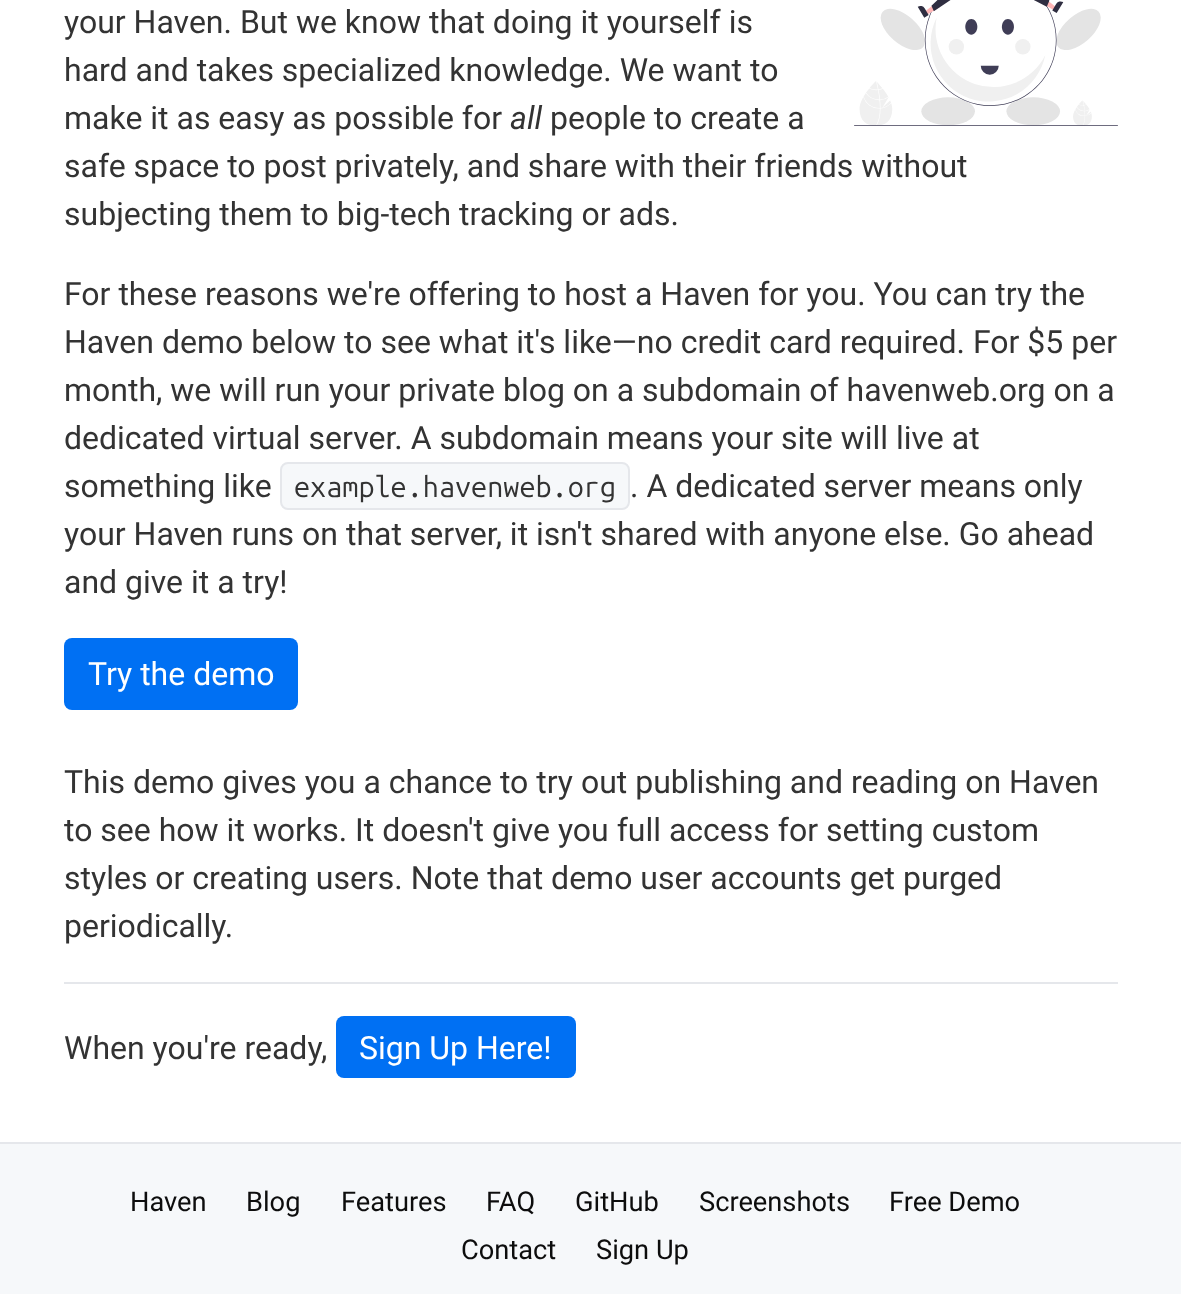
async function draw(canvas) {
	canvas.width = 1181;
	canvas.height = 1294;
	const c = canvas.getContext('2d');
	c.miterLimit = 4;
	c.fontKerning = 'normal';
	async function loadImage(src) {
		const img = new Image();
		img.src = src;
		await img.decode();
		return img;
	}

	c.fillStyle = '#fff';
	c.fillRect(0, 0, 1181, 1294);
	c.font = '32px Roboto';
	c.fillStyle = '#333';
	for (const [text, x, y] of [
		['your Haven. But we know that doing it yourself is', 64, 33],
		['hard and takes specialized knowledge. We want to', 64, 81],
		['make it as easy as possible for', 64, 129],
	]) {
		c.fillText(text, x, y);
	}
	c.font = 'italic 32px Roboto';
	c.fillText('all', 510, 129);
	c.font = '32px Roboto';
	for (const [text, x, y] of [
		['people to create a', 550, 129],
		['safe space to post privately, and share with their friends without', 64, 177],
		['subjecting them to big-tech tracking or ads.', 64, 225],
	]) {
		c.fillText(text, x, y);
	}
	c.drawImage(await loadImage('img1.png'), 854, 0, 264, 126);
	for (const [text, x, y] of [
		['For these reasons we\'re offering to host a Haven for you. You can try the', 64, 305],
		['Haven demo below to see what it\'s like—no credit card required. For $5 per', 64, 353],
		['month, we will run your private blog on a subdomain of havenweb.org on a', 64, 401],
		['dedicated virtual server. A subdomain means your site will live at', 64, 449],
		['something like', 64, 497],
	]) {
		c.fillText(text, x, y);
	}
	c.fillStyle = '#f6f8fa';
	c.beginPath();
	c.roundRect(281, 463, 348, 46, 7);
	c.fill();
	c.strokeStyle = '#e5e7eb';
	c.lineWidth = 2;
	c.stroke();
	c.font = '28.75px Ubuntu Mono';
	c.fillStyle = '#333';
	c.fillText('example.havenweb.org', 294, 497);
	c.font = '32px Roboto';
	for (const [text, x, y] of [
		['. A dedicated server means only', 630, 497],
		['your Haven runs on that server, it isn\'t shared with anyone else. Go ahead', 64, 545],
		['and give it a try!', 64, 593],
	]) {
		c.fillText(text, x, y);
	}
	c.fillStyle = '#0070f3';
	c.beginPath();
	c.roundRect(64, 638, 234, 72, 8);
	c.fill();
	c.fillStyle = '#fff';
	c.fillText('Try the demo', 88, 685);
	c.fillStyle = '#333';
	for (const [text, x, y] of [
		['This demo gives you a chance to try out publishing and reading on Haven', 64, 793],
		['to see how it works. It doesn\'t give you full access for setting custom', 64, 841],
		['styles or creating users. Note that demo user accounts get purged', 64, 889],
		['periodically.', 64, 937],
	]) {
		c.fillText(text, x, y);
	}
	c.fillStyle = '#e5e7eb';
	c.fillRect(64, 982, 1054, 2);
	c.fillStyle = '#333';
	c.fillText('When you\'re ready,', 64, 1059);
	c.fillStyle = '#0070f3';
	c.beginPath();
	c.roundRect(336, 1016, 240, 62, 8);
	c.fill();
	c.fillStyle = '#fff';
	c.fillText('Sign Up Here!', 359, 1059);
	c.fillStyle = '#f6f8fa';
	c.fillRect(0, 1144, 1181, 150);
	c.fillStyle = '#e5e7eb';
	c.fillRect(0, 1142, 1181, 2);
	c.font = '27.25px Roboto';
	c.fillStyle = '#0d0d0d';
	for (const [text, x, y] of [
		['Haven', 130, 1211],
		['Blog', 246, 1211],
		['Features', 341, 1211],
		['FAQ', 486, 1211],
		['GitHub', 575, 1211],
		['Screenshots', 699, 1211],
		['Free Demo', 889, 1211],
		['Contact', 461, 1259],
		['Sign Up', 596, 1259],
	]) {
		c.fillText(text, x, y);
	}
}

draw(document.querySelector('canvas'));
